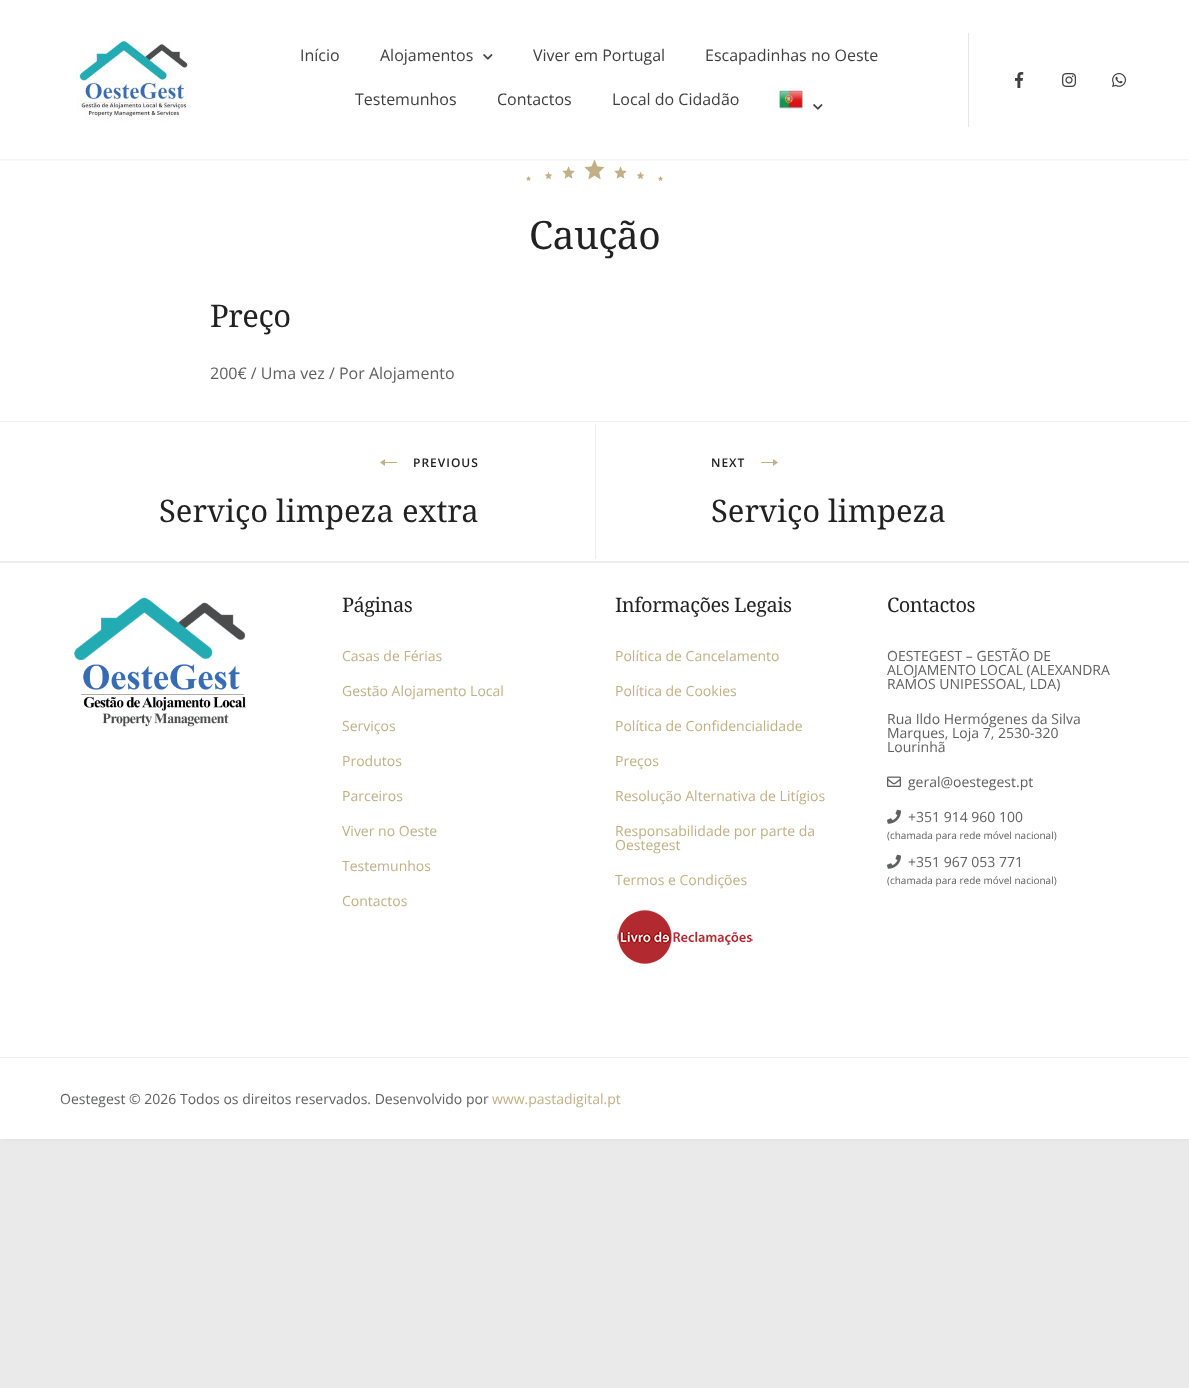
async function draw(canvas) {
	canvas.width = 1189;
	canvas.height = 1388;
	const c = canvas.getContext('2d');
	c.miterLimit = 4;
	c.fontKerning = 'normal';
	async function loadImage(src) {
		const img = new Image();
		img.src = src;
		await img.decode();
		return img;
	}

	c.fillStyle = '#eaeaea';
	c.fillRect(0, 0, 1189, 1388);
	c.fillStyle = '#0000000d';
	c.filter = 'blur(3px)';
	c.beginPath();
	c.rect(0, 0, 1189, 1139);
	c.fill();
	c.filter = 'none';
	c.fillStyle = '#fff';
	c.fillRect(0, 0, 1189, 1139);
	c.drawImage(await loadImage('img7.png'), 526, 159, 137, 22);
	c.save();
	c.beginPath();
	c.rect(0, 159, 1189, 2);
	c.clip();
	c.fillStyle = '#5050501a';
	c.filter = 'blur(1px)';
	c.beginPath();
	c.rect(0, 1, 1189, 159);
	c.fill();
	c.filter = 'none';
	c.restore();
	c.drawImage(await loadImage('img1.png'), 76, 41, 112, 80);
	c.fillStyle = '#e6e6e6';
	c.fillRect(968, 33, 1, 94);
	c.font = '16px Open Sans';
	c.fillStyle = '#404040';
	c.fillText('Início', 300, 61);
	c.fillText('Alojamentos', 380, 61);
	c.drawImage(await loadImage('img2.png'), 483, 54, 10, 6);
	for (const [text, x, y] of [
		['Viver em Portugal', 533, 61],
		['Escapadinhas no Oeste', 705, 61],
		['Testemunhos', 355, 105],
		['Contactos', 497, 105],
		['Local do Cidadão', 612, 105],
	]) {
		c.fillText(text, x, y);
	}
	c.drawImage(await loadImage('img3.png'), 779, 90, 24, 19);
	c.drawImage(await loadImage('img2.png'), 813, 104, 10, 6);
	c.drawImage(await loadImage('img4.png'), 1015, 72, 9, 16);
	c.drawImage(await loadImage('img5.png'), 1062, 73, 14, 14);
	c.drawImage(await loadImage('img6.png'), 1112, 73, 14, 14);
	c.letterSpacing = '-0.5px';
	c.font = '39px Noto Serif';
	c.fillStyle = '#222';
	c.fillText('Caução', 529, 249);
	c.font = '31px Noto Serif';
	c.fillText('Preço', 210, 327);
	c.letterSpacing = '0px';
	c.font = '16px Open Sans';
	c.fillStyle = '#5f6060';
	c.fillText('200€ / Uma vez / Por Alojamento', 210, 379);
	for (const [x, y, w, h, color] of [
		[0, 421, 1189, 1, '#ededed'],
		[0, 561, 1189, 2, '#ededed'],
		[595, 424, 1, 135, '#ededed'],
	]) {
		c.fillStyle = color;
		c.fillRect(x, y, w, h);
	}
	c.drawImage(await loadImage('img8.png'), 380, 459, 17, 7);
	c.letterSpacing = '1px';
	c.font = '600 12px Open Sans';
	c.fillStyle = '#222';
	c.fillText('PREVIOUS', 413, 467);
	c.letterSpacing = '0px';
	c.font = '31px Noto Serif';
	c.fillText('Serviço limpeza extra', 159, 522);
	c.letterSpacing = '1px';
	c.font = '600 12px Open Sans';
	c.fillText('NEXT', 711, 467);
	c.drawImage(await loadImage('img9.png'), 761, 459, 17, 7);
	c.letterSpacing = '0px';
	c.font = '31px Noto Serif';
	c.fillText('Serviço limpeza', 711, 522);
	c.drawImage(await loadImage('img10.png'), 74, 597, 172, 130);
	c.letterSpacing = '-0.5px';
	c.font = '20px Noto Serif';
	c.fillText('Páginas', 342, 612);
	c.letterSpacing = '0px';
	c.font = '14px Open Sans';
	c.fillStyle = '#c1b086';
	for (const [text, x, y] of [
		['Casas de Férias', 342, 661],
		['Gestão Alojamento Local', 342, 696],
		['Serviços', 342, 731],
		['Produtos', 342, 766],
		['Parceiros', 342, 801],
		['Viver no Oeste', 342, 836],
		['Testemunhos', 342, 871],
		['Contactos', 342, 906],
	]) {
		c.fillText(text, x, y);
	}
	c.letterSpacing = '-0.5px';
	c.font = '20px Noto Serif';
	c.fillStyle = '#222';
	c.fillText('Informações Legais', 615, 612);
	c.letterSpacing = '0px';
	c.font = '14px Open Sans';
	c.fillStyle = '#c1b086';
	for (const [text, x, y] of [
		['Política de Cancelamento', 615, 661],
		['Política de Cookies', 615, 696],
		['Política de Confidencialidade', 615, 731],
		['Preços', 615, 766],
		['Resolução Alternativa de Litígios', 615, 801],
		['Responsabilidade por parte da', 615, 836],
		['Oestegest', 615, 850],
		['Termos e Condições', 615, 885],
	]) {
		c.fillText(text, x, y);
	}
	c.drawImage(await loadImage('img11.png'), 617, 910, 136, 54);
	c.letterSpacing = '-0.5px';
	c.font = '20px Noto Serif';
	c.fillStyle = '#222';
	c.fillText('Contactos', 887, 612);
	c.letterSpacing = '0px';
	c.font = '14px Open Sans';
	c.fillStyle = '#5f6060';
	for (const [text, x, y] of [
		['OESTEGEST – GESTÃO DE', 887, 661],
		['ALOJAMENTO LOCAL (ALEXANDRA', 887, 675],
		['RAMOS UNIPESSOAL, LDA)', 887, 689],
		['Rua Ildo Hermógenes da Silva', 887, 724],
		['Marques, Loja 7, 2530-320', 887, 738],
		['Lourinhã', 887, 752],
	]) {
		c.fillText(text, x, y);
	}
	c.drawImage(await loadImage('img12.png'), 887, 776, 14, 11);
	c.fillText('geral@oestegest.pt', 908, 787);
	c.drawImage(await loadImage('img13.png'), 887, 809, 14, 15);
	c.fillText('+351 914 960 100', 908, 822);
	c.font = '10px Open Sans';
	c.fillText('(chamada para rede móvel nacional)', 887, 839);
	c.drawImage(await loadImage('img13.png'), 887, 854, 14, 15);
	c.font = '14px Open Sans';
	c.fillText('+351 967 053 771', 908, 867);
	c.font = '10px Open Sans';
	c.fillText('(chamada para rede móvel nacional)', 887, 884);
	c.fillStyle = '#ededed';
	c.fillRect(0, 1057, 1189, 1);
	c.font = '14px Open Sans';
	c.fillStyle = '#5f6060';
	c.fillText('Oestegest © 2026 Todos os direitos reservados. Desenvolvido por', 60, 1104);
	c.fillStyle = '#c1b086';
	c.fillText('www.pastadigital.pt', 492, 1104);
}

draw(document.querySelector('canvas'));
